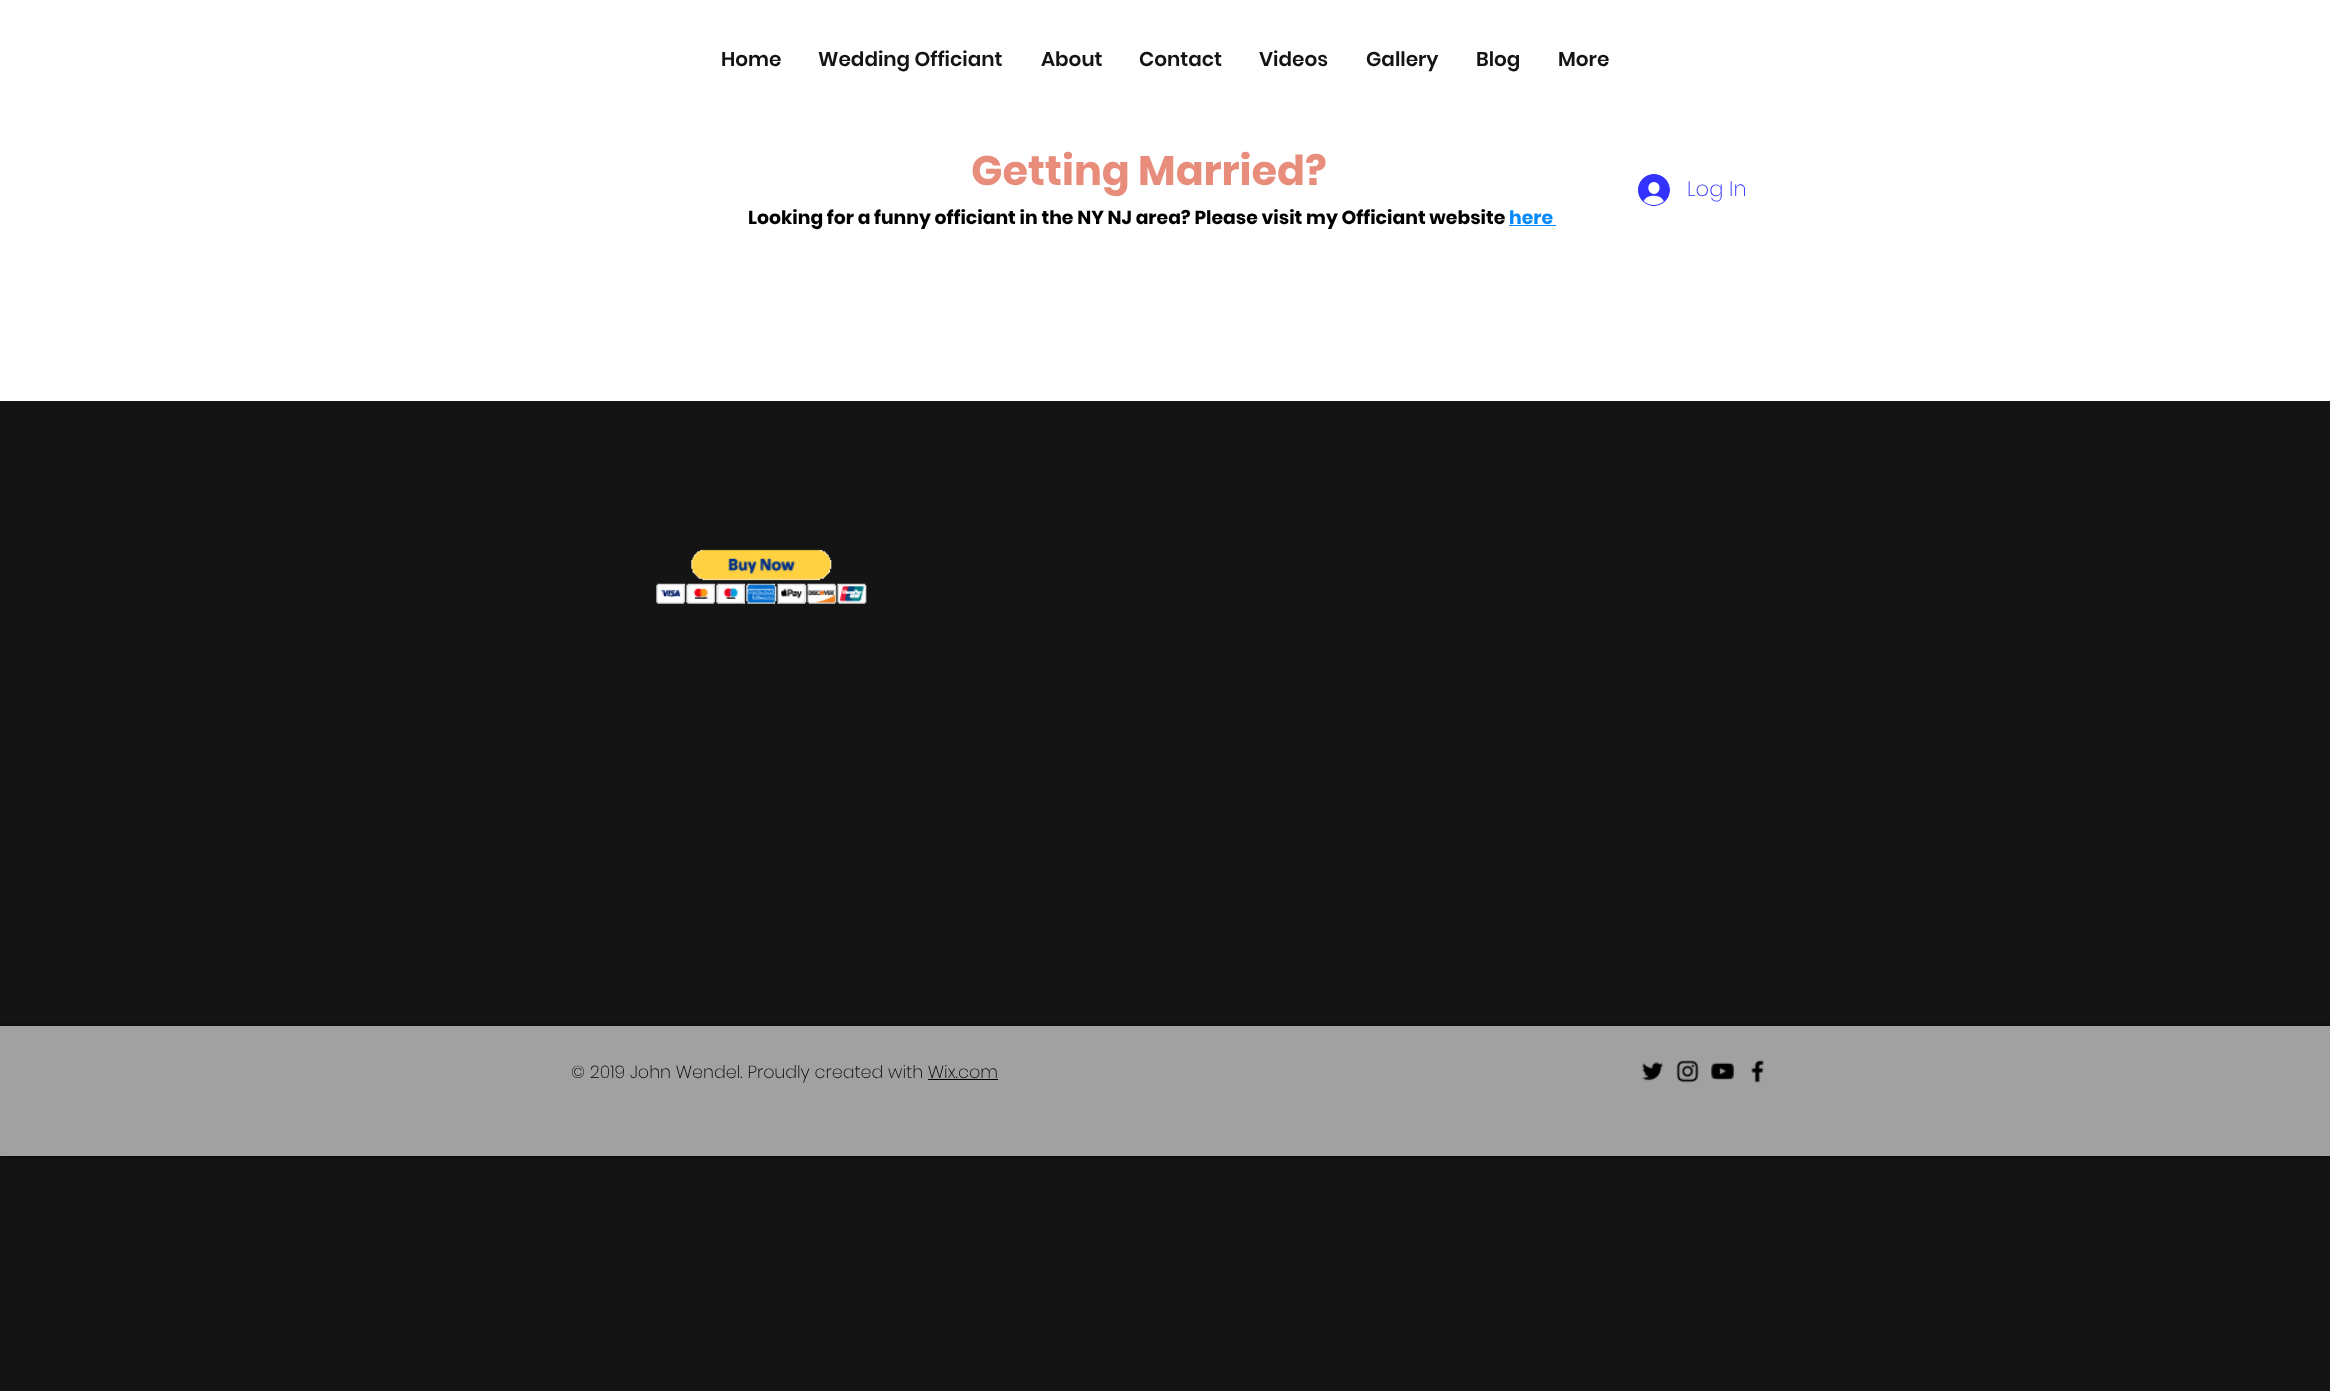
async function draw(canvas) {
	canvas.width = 2330;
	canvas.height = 1391;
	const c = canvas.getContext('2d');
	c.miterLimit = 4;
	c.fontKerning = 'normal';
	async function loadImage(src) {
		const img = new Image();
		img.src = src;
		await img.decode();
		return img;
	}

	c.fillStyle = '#141414';
	c.fillRect(0, 0, 2330, 1391);
	c.fillStyle = '#fff';
	c.fillRect(0, 0, 2330, 401);
	c.font = '600 20px Poppins';
	c.fillStyle = '#141414';
	for (const [text, x, y] of [
		['Home', 721, 66],
		['Wedding Officiant', 818, 66],
		['About', 1041, 66],
		['Contact', 1139, 66],
		['Videos', 1259, 66],
		['Gallery', 1366, 66],
		['Blog', 1476, 66],
		['More', 1558, 66],
	]) {
		c.fillText(text, x, y);
	}
	c.font = 'bold 41.25px Poppins';
	c.fillStyle = '#e88c7b';
	c.fillText('Getting Married?', 971, 185);
	c.font = 'bold 18.75px Poppins';
	c.fillStyle = '#000';
	c.fillText('Looking for a funny officiant in the NY NJ area? Please visit my Officiant website', 748, 224);
	c.fillStyle = '#008afc';
	c.fillText('here', 1509, 224);
	c.fillRect(1509, 225, 47, 1);
	c.drawImage(await loadImage('img1.png'), 1638, 174, 32, 32);
	c.font = '200 21px Poppins';
	c.fillStyle = '#3332ff';
	c.fillText('Log In', 1687, 196);
	c.drawImage(await loadImage('img2.png'), 656, 549, 211, 55);
	c.fillStyle = '#000000b3';
	c.filter = 'blur(3px)';
	c.beginPath();
	c.rect(0, 1026, 2330, 130);
	c.fill();
	c.filter = 'none';
	c.fillStyle = '#a1a1a1';
	c.fillRect(0, 1026, 2330, 130);
	c.font = '200 17.5px Poppins';
	c.fillStyle = '#000';
	c.fillText('© 2019 John Wendel. Proudly created with Wix.com', 571, 1078);
	c.fillRect(928, 1079, 70, 1);
	c.drawImage(await loadImage('img3.png'), 1642, 1062, 21, 19);
	c.drawImage(await loadImage('img4.png'), 1676, 1060, 23, 23);
	c.drawImage(await loadImage('img5.png'), 1711, 1062, 24, 18);
	c.drawImage(await loadImage('img6.png'), 1751, 1060, 13, 23);
}

draw(document.querySelector('canvas'));
